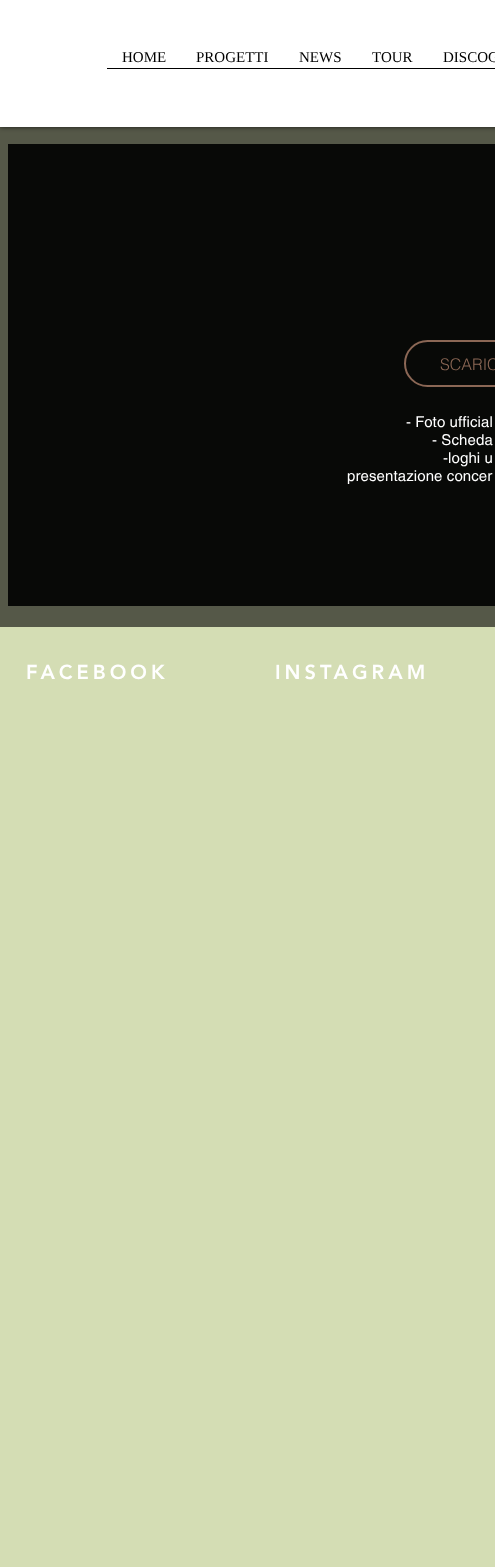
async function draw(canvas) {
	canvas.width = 495;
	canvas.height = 1567;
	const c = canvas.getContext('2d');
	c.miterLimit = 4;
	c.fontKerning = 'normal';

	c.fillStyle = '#d4ddb4';
	c.fillRect(0, 0, 495, 1567);
	c.fillStyle = '#555848';
	c.fillRect(0, 127, 495, 500);
	c.fillStyle = '#000000b3';
	c.filter = 'blur(2.5px)';
	c.beginPath();
	c.rect(0, 0, 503, 127);
	c.fill();
	c.filter = 'none';
	c.fillStyle = '#fff';
	c.fillRect(0, 0, 495, 127);
	c.font = '15px Liberation Serif';
	c.fillStyle = '#000';
	for (const [text, x, y] of [
		['HOME', 122, 62],
		['PROGETTI', 196, 62],
		['NEWS', 299, 62],
		['TOUR', 372, 62],
		['DISCOG', 443, 62],
	]) {
		c.fillText(text, x, y);
	}
	c.fillRect(107, 68, 388, 1);
	c.fillStyle = '#080907';
	c.fillRect(8, 144, 487, 462);
	c.beginPath();
	c.roundRect(405, 341, 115, 45, 22.5);
	c.strokeStyle = '#8b6755';
	c.lineWidth = 2;
	c.stroke();
	c.font = '300 16px helvetica';
	c.fillStyle = '#8b6755';
	c.fillText('SCARIC', 440, 370);
	c.letterSpacing = '0.1px';
	c.font = '15px helvetica';
	c.fillStyle = '#fff';
	for (const [text, x, y] of [
		['- Foto ufficial', 406, 427],
		['- Scheda', 432, 445],
		['-loghi u', 443, 463],
		['presentazione concer', 347, 481],
	]) {
		c.fillText(text, x, y);
	}
	c.letterSpacing = '4px';
	c.font = '900 20px "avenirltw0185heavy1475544"';
	c.fillText('FACEBOOK', 26, 679);
	c.fillText('INSTAGRAM', 275, 679);
}

draw(document.querySelector('canvas'));
